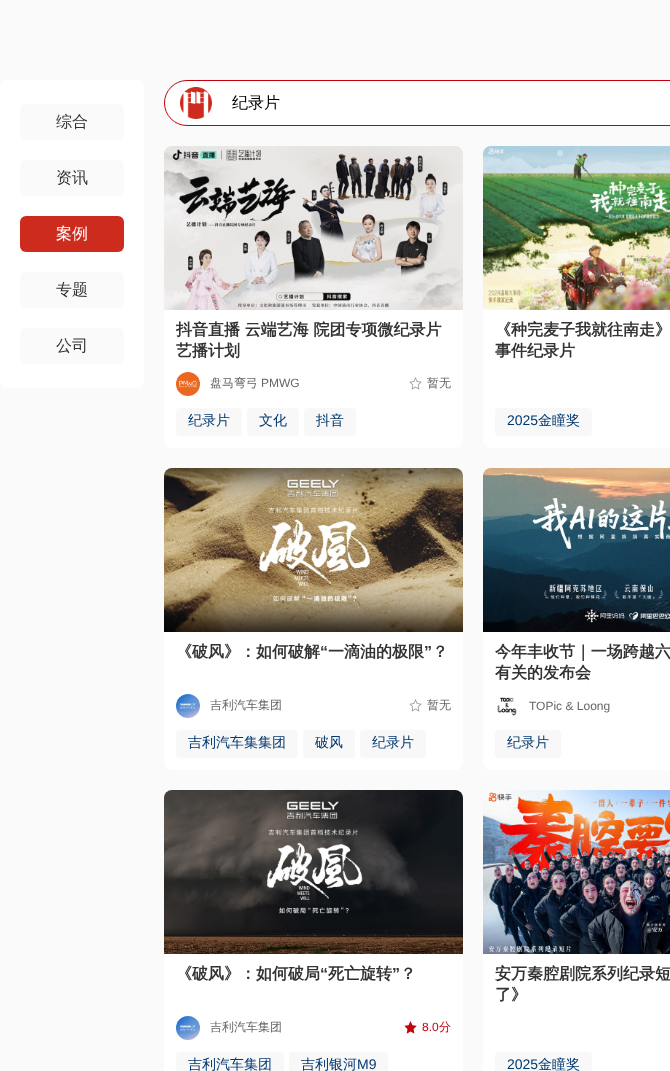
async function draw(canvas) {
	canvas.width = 670;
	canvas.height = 1071;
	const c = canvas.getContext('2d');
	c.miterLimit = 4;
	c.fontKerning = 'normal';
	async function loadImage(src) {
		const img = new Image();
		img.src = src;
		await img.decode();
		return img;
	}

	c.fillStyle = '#fafafa';
	c.fillRect(0, 0, 670, 1071);
	c.fillStyle = '#fff';
	c.beginPath();
	c.roundRect(0, 80, 144, 308, 6);
	c.fill();
	c.fillStyle = '#fafafa';
	c.beginPath();
	c.roundRect(20, 104, 104, 36, 6);
	c.fill();
	c.font = '500 16px WenQuanYi Zen Hei';
	c.fillStyle = '#333';
	c.fillText('综合', 56, 127);
	c.fillStyle = '#fafafa';
	c.beginPath();
	c.roundRect(20, 160, 104, 36, 6);
	c.fill();
	c.fillStyle = '#333';
	c.fillText('资讯', 56, 183);
	c.fillStyle = '#cd2b1e';
	c.beginPath();
	c.roundRect(20, 216, 104, 36, 6);
	c.fill();
	c.fillStyle = '#fff';
	c.fillText('案例', 56, 239);
	c.fillStyle = '#fafafa';
	c.beginPath();
	c.roundRect(20, 272, 104, 36, 6);
	c.fill();
	c.fillStyle = '#333';
	c.fillText('专题', 56, 295);
	c.fillStyle = '#fafafa';
	c.beginPath();
	c.roundRect(20, 328, 104, 36, 6);
	c.fill();
	c.fillStyle = '#333';
	c.fillText('公司', 56, 351);
	c.fillStyle = '#fff';
	c.beginPath();
	c.roundRect(164, 80, 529, 46, 23);
	c.fill();
	c.drawImage(await loadImage('img1.png'), 180, 87, 32, 32);
	c.beginPath();
	c.roundRect(164.5, 80.5, 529, 45, 22.5);
	c.strokeStyle = '#c3000b';
	c.stroke();
	c.fillStyle = '#000';
	c.fillText('纪录片', 232, 108);
	c.fillStyle = '#fff';
	c.beginPath();
	c.roundRect(164, 146, 299, 302, 8);
	c.fill();
	c.drawImage(await loadImage('img2.png'), 164, 146, 299, 164);
	c.font = 'bold 16px WenQuanYi Zen Hei';
	c.fillStyle = '#333';
	c.fillText('抖音直播 云端艺海 院团专项微纪录片', 176, 335);
	c.fillText('艺播计划', 176, 356);
	c.drawImage(await loadImage('img3.png'), 176, 372, 24, 24);
	c.font = '500 12px WenQuanYi Zen Hei';
	c.fillStyle = '#666';
	c.fillText('盘马弯弓', 210, 387);
	c.font = '12px Liberation Sans';
	c.fillText('PMWG', 261, 387);
	c.drawImage(await loadImage('img4.png'), 409, 377, 13, 13);
	c.font = '500 12px WenQuanYi Zen Hei';
	c.fillText('暂无', 427, 387);
	c.fillStyle = '#f8f8f8';
	c.beginPath();
	c.roundRect(176, 408, 66, 28, 4);
	c.fill();
	c.font = '500 14px WenQuanYi Zen Hei';
	c.fillStyle = '#00386f';
	c.fillText('纪录片', 188, 425);
	c.fillStyle = '#f8f8f8';
	c.beginPath();
	c.roundRect(247, 408, 52, 28, 4);
	c.fill();
	c.fillStyle = '#00386f';
	c.fillText('文化', 259, 425);
	c.fillStyle = '#f8f8f8';
	c.beginPath();
	c.roundRect(304, 408, 52, 28, 4);
	c.fill();
	c.fillStyle = '#00386f';
	c.fillText('抖音', 316, 425);
	c.fillStyle = '#fff';
	c.beginPath();
	c.roundRect(483, 146, 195, 302, 8);
	c.fill();
	c.drawImage(await loadImage('img5.png'), 483, 146, 187, 164);
	c.font = 'bold 16px WenQuanYi Zen Hei';
	c.fillStyle = '#333';
	c.fillText('《种完麦子我就往南走》', 495, 335);
	c.fillText('事件纪录片', 495, 356);
	c.fillStyle = '#f8f8f8';
	c.beginPath();
	c.roundRect(495, 408, 97, 28, 4);
	c.fill();
	c.font = '14px Liberation Sans';
	c.fillStyle = '#00386f';
	c.fillText('2025', 507, 425);
	c.font = '500 14px WenQuanYi Zen Hei';
	c.fillText('金瞳奖', 538, 425);
	c.fillStyle = '#fff';
	c.beginPath();
	c.roundRect(164, 468, 299, 302, 8);
	c.fill();
	c.drawImage(await loadImage('img6.png'), 164, 468, 299, 164);
	c.font = 'bold 16px WenQuanYi Zen Hei';
	c.fillStyle = '#333';
	c.fillText('《破风》：如何破解', 176, 657);
	c.font = 'bold 16px Liberation Sans';
	c.fillText('“', 320, 657);
	c.font = 'bold 16px WenQuanYi Zen Hei';
	c.fillText('一滴油的极限', 328, 657);
	c.font = 'bold 16px Liberation Sans';
	c.fillText('”', 424, 657);
	c.font = 'bold 16px WenQuanYi Zen Hei';
	c.fillText('？', 432, 657);
	c.drawImage(await loadImage('img7.png'), 176, 694, 24, 24);
	c.font = '500 12px WenQuanYi Zen Hei';
	c.fillStyle = '#666';
	c.fillText('吉利汽车集团', 210, 709);
	c.drawImage(await loadImage('img4.png'), 409, 699, 13, 13);
	c.fillText('暂无', 427, 709);
	c.fillStyle = '#f8f8f8';
	c.beginPath();
	c.roundRect(176, 730, 122, 28, 4);
	c.fill();
	c.font = '500 14px WenQuanYi Zen Hei';
	c.fillStyle = '#00386f';
	c.fillText('吉利汽车集集团', 188, 747);
	c.fillStyle = '#f8f8f8';
	c.beginPath();
	c.roundRect(303, 730, 52, 28, 4);
	c.fill();
	c.fillStyle = '#00386f';
	c.fillText('破风', 315, 747);
	c.fillStyle = '#f8f8f8';
	c.beginPath();
	c.roundRect(360, 730, 66, 28, 4);
	c.fill();
	c.fillStyle = '#00386f';
	c.fillText('纪录片', 372, 747);
	c.fillStyle = '#fff';
	c.beginPath();
	c.roundRect(483, 468, 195, 302, 8);
	c.fill();
	c.drawImage(await loadImage('img8.png'), 483, 468, 187, 164);
	c.font = 'bold 16px WenQuanYi Zen Hei';
	c.fillStyle = '#333';
	c.fillText('今年丰收节｜一场跨越六', 495, 657);
	c.fillText('有关的发布会', 495, 678);
	c.drawImage(await loadImage('img9.png'), 497, 697, 20, 19);
	c.font = '12px Liberation Sans';
	c.fillStyle = '#666';
	c.fillText('TOPic & Loong', 529, 710);
	c.fillStyle = '#f8f8f8';
	c.beginPath();
	c.roundRect(495, 730, 66, 28, 4);
	c.fill();
	c.font = '500 14px WenQuanYi Zen Hei';
	c.fillStyle = '#00386f';
	c.fillText('纪录片', 507, 747);
	c.fillStyle = '#fff';
	c.beginPath();
	c.roundRect(164, 790, 299, 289, 8);
	c.fill();
	c.drawImage(await loadImage('img10.png'), 164, 790, 299, 164);
	c.font = 'bold 16px WenQuanYi Zen Hei';
	c.fillStyle = '#333';
	c.fillText('《破风》：如何破局', 176, 979);
	c.font = 'bold 16px Liberation Sans';
	c.fillText('“', 320, 979);
	c.font = 'bold 16px WenQuanYi Zen Hei';
	c.fillText('死亡旋转', 328, 979);
	c.font = 'bold 16px Liberation Sans';
	c.fillText('”', 392, 979);
	c.font = 'bold 16px WenQuanYi Zen Hei';
	c.fillText('？', 400, 979);
	c.drawImage(await loadImage('img11.png'), 176, 1016, 24, 24);
	c.font = '500 12px WenQuanYi Zen Hei';
	c.fillStyle = '#666';
	c.fillText('吉利汽车集团', 210, 1031);
	c.drawImage(await loadImage('img12.png'), 404, 1021, 13, 13);
	c.font = '12px Liberation Sans';
	c.fillStyle = '#c7000b';
	c.fillText('8.0', 422, 1031);
	c.font = '500 12px WenQuanYi Zen Hei';
	c.fillText('分', 439, 1031);
	c.fillStyle = '#f8f8f8';
	c.beginPath();
	c.roundRect(176, 1052, 108, 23, 4);
	c.fill();
	c.font = '500 14px WenQuanYi Zen Hei';
	c.fillStyle = '#00386f';
	c.fillText('吉利汽车集团', 188, 1069);
	c.fillStyle = '#f8f8f8';
	c.beginPath();
	c.roundRect(289, 1052, 99, 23, 4);
	c.fill();
	c.fillStyle = '#00386f';
	c.fillText('吉利银河', 301, 1069);
	c.font = '14px Liberation Sans';
	c.fillText('M9', 357, 1069);
	c.fillStyle = '#fff';
	c.beginPath();
	c.roundRect(483, 790, 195, 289, 8);
	c.fill();
	c.drawImage(await loadImage('img13.png'), 483, 790, 187, 164);
	c.font = 'bold 16px WenQuanYi Zen Hei';
	c.fillStyle = '#333';
	c.fillText('安万秦腔剧院系列纪录短', 495, 979);
	c.fillText('了》', 495, 1000);
	c.fillStyle = '#f8f8f8';
	c.beginPath();
	c.roundRect(495, 1052, 97, 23, 4);
	c.fill();
	c.font = '14px Liberation Sans';
	c.fillStyle = '#00386f';
	c.fillText('2025', 507, 1069);
	c.font = '500 14px WenQuanYi Zen Hei';
	c.fillText('金瞳奖', 538, 1069);
}

draw(document.querySelector('canvas'));
